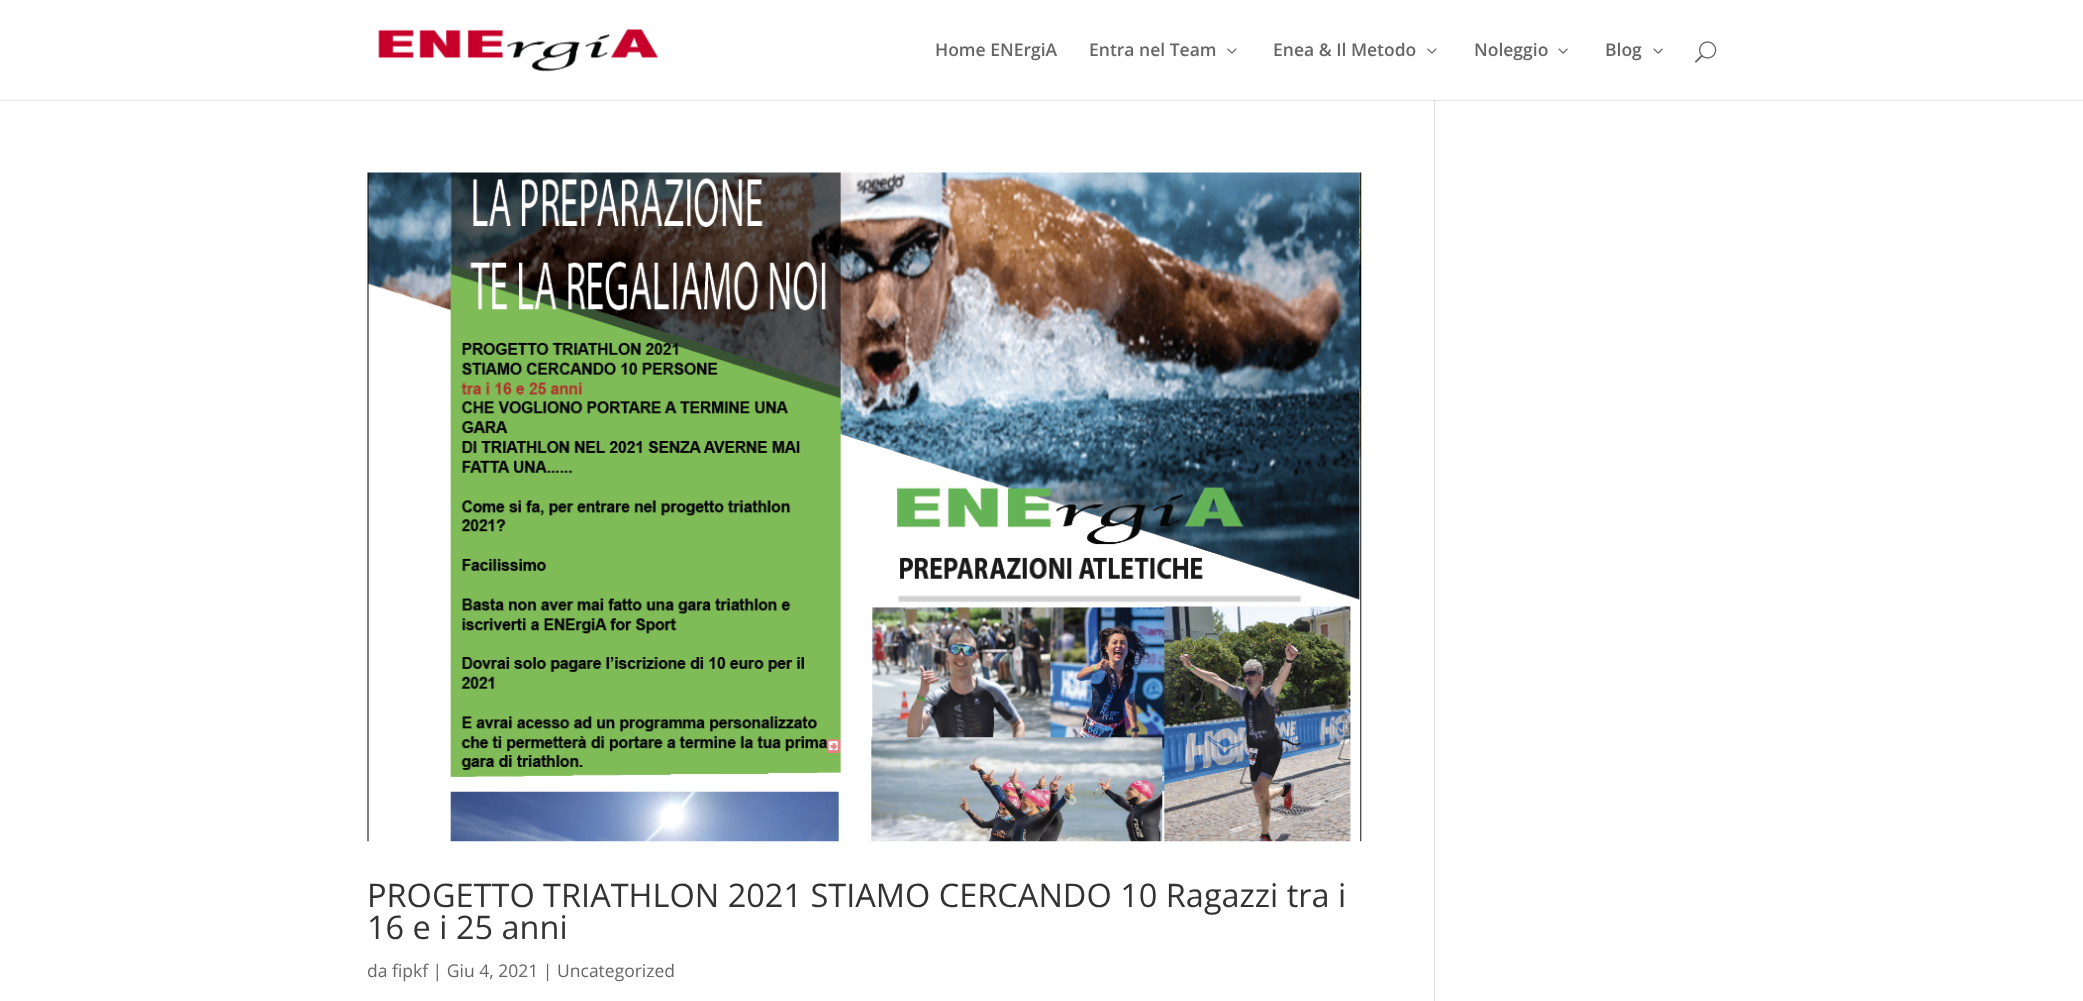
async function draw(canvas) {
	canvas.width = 2083;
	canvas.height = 1001;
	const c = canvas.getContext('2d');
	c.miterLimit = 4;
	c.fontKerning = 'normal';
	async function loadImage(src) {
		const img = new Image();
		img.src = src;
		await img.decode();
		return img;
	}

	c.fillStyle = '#fff';
	c.fillRect(0, 0, 2083, 1001);
	c.fillStyle = '#e2e2e2';
	c.fillRect(1434, 100, 1, 901);
	c.fillStyle = '#0000001a';
	c.beginPath();
	c.moveTo(0, 100);
	c.lineTo(0, 101);
	c.lineTo(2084, 101);
	c.lineTo(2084, 1);
	c.lineTo(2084, 100);
	c.closePath();
	c.fill();
	c.drawImage(await loadImage('img1.png'), 378, 29, 281, 43);
	c.font = '600 17.5px Open Sans';
	c.fillStyle = '#666';
	c.fillText('Home ENErgiA', 935, 56);
	c.fillText('Entra nel Team', 1089, 56);
	c.drawImage(await loadImage('img2.png'), 1227, 48, 10, 6);
	c.fillText('Enea & Il Metodo', 1273, 56);
	c.drawImage(await loadImage('img2.png'), 1427, 48, 10, 6);
	c.fillText('Noleggio', 1474, 56);
	c.drawImage(await loadImage('img3.png'), 1558, 48, 10, 6);
	c.fillText('Blog', 1605, 56);
	c.drawImage(await loadImage('img3.png'), 1653, 48, 10, 6);
	c.drawImage(await loadImage('img4.png'), 1695, 41, 22, 22);
	c.drawImage(await loadImage('img5.png'), 367, 172, 995, 670);
	c.font = '32.5px Open Sans';
	c.fillStyle = '#333';
	c.fillText('PROGETTO TRIATHLON 2021 STIAMO CERCANDO 10 Ragazzi tra i', 367, 907);
	c.fillText('16 e i 25 anni', 367, 939);
	c.font = '17.5px Open Sans';
	c.fillStyle = '#666';
	c.fillText('da fipkf | Giu 4, 2021 | Uncategorized', 367, 977);
}

draw(document.querySelector('canvas'));
